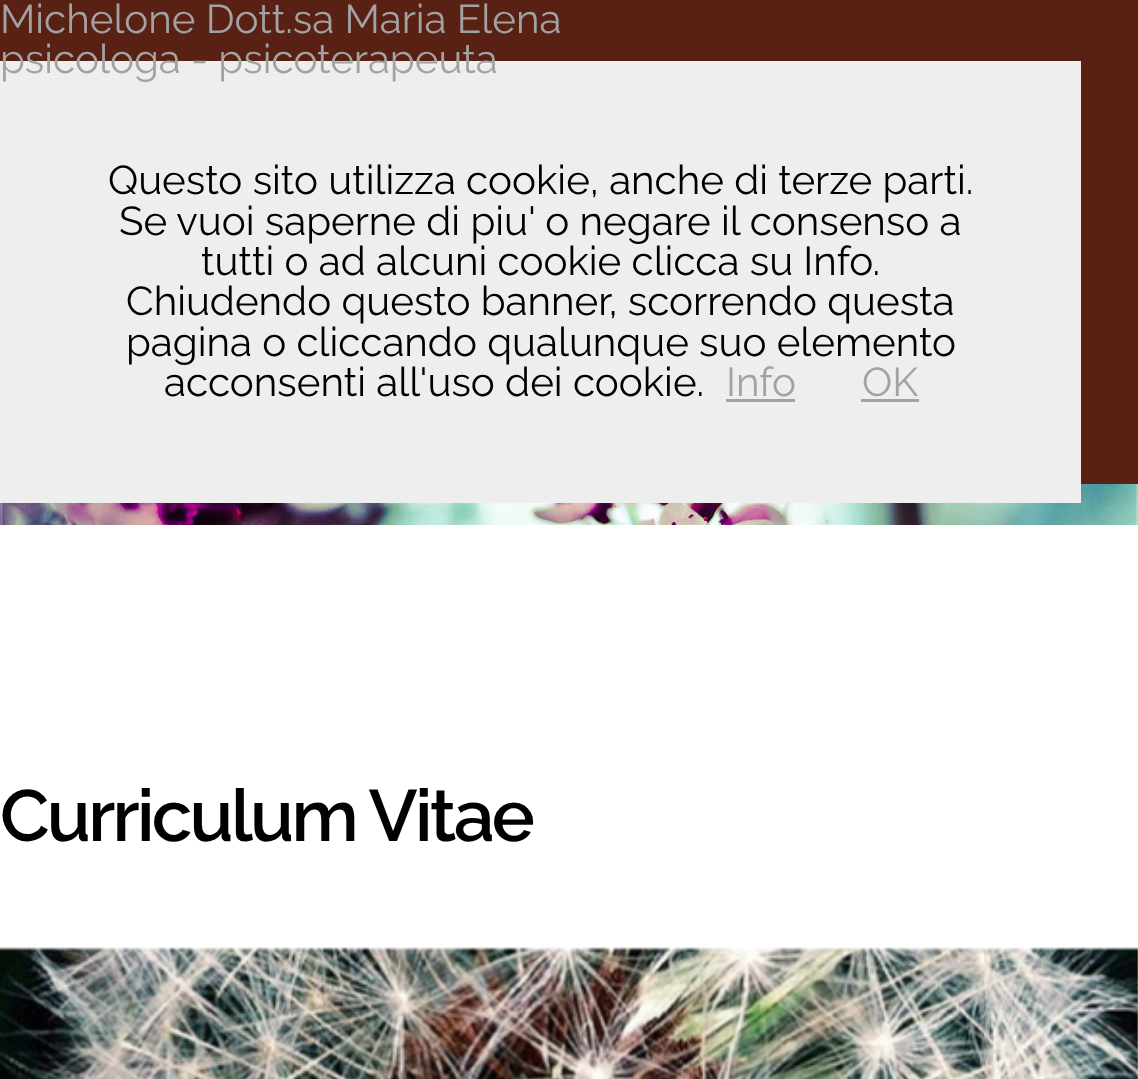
async function draw(canvas) {
	canvas.width = 1138;
	canvas.height = 1079;
	const c = canvas.getContext('2d');
	c.miterLimit = 4;
	c.fontKerning = 'normal';
	async function loadImage(src) {
		const img = new Image();
		img.src = src;
		await img.decode();
		return img;
	}

	c.fillStyle = '#592114';
	c.fillRect(0, 0, 1138, 1079);
	c.font = '40.3px Raleway';
	c.fillStyle = '#a2a2a2';
	c.fillText('Michelone Dott.sa Maria Elena', 0, 33);
	c.drawImage(await loadImage('img1.png'), 0, 484, 1138, 41);
	c.fillStyle = '#eee';
	c.fillRect(0, 61, 1081, 442);
	c.fillStyle = '#a2a2a2';
	c.fillText('psicologa - psicoterapeuta', 0, 73);
	c.fillStyle = '#000';
	for (const [text, x, y] of [
		['Questo sito utilizza cookie, anche di terze parti.', 108, 194],
		['Se vuoi saperne di piu\' o negare il consenso a', 119, 235],
		['tutti o ad alcuni cookie clicca su Info.', 201, 275],
		['Chiudendo questo banner, scorrendo questa', 126, 315],
		['pagina o cliccando qualunque suo elemento', 126, 356],
		['acconsenti all\'uso dei cookie.', 164, 396],
	]) {
		c.fillText(text, x, y);
	}
	c.fillStyle = '#a2a2a2';
	c.fillText('Info', 726, 396);
	c.fillRect(726, 399, 69, 3);
	c.fillText('OK', 862, 396);
	c.fillRect(861, 399, 58, 3);
	c.fillStyle = '#fff';
	c.fillRect(0, 525, 1138, 554);
	c.letterSpacing = '-2.75px';
	c.font = '600 72.5px Raleway';
	c.fillStyle = '#000';
	c.fillText('Curriculum Vitae', 0, 841);
	c.drawImage(await loadImage('img2.png'), 0, 947, 1138, 132);
}

draw(document.querySelector('canvas'));
